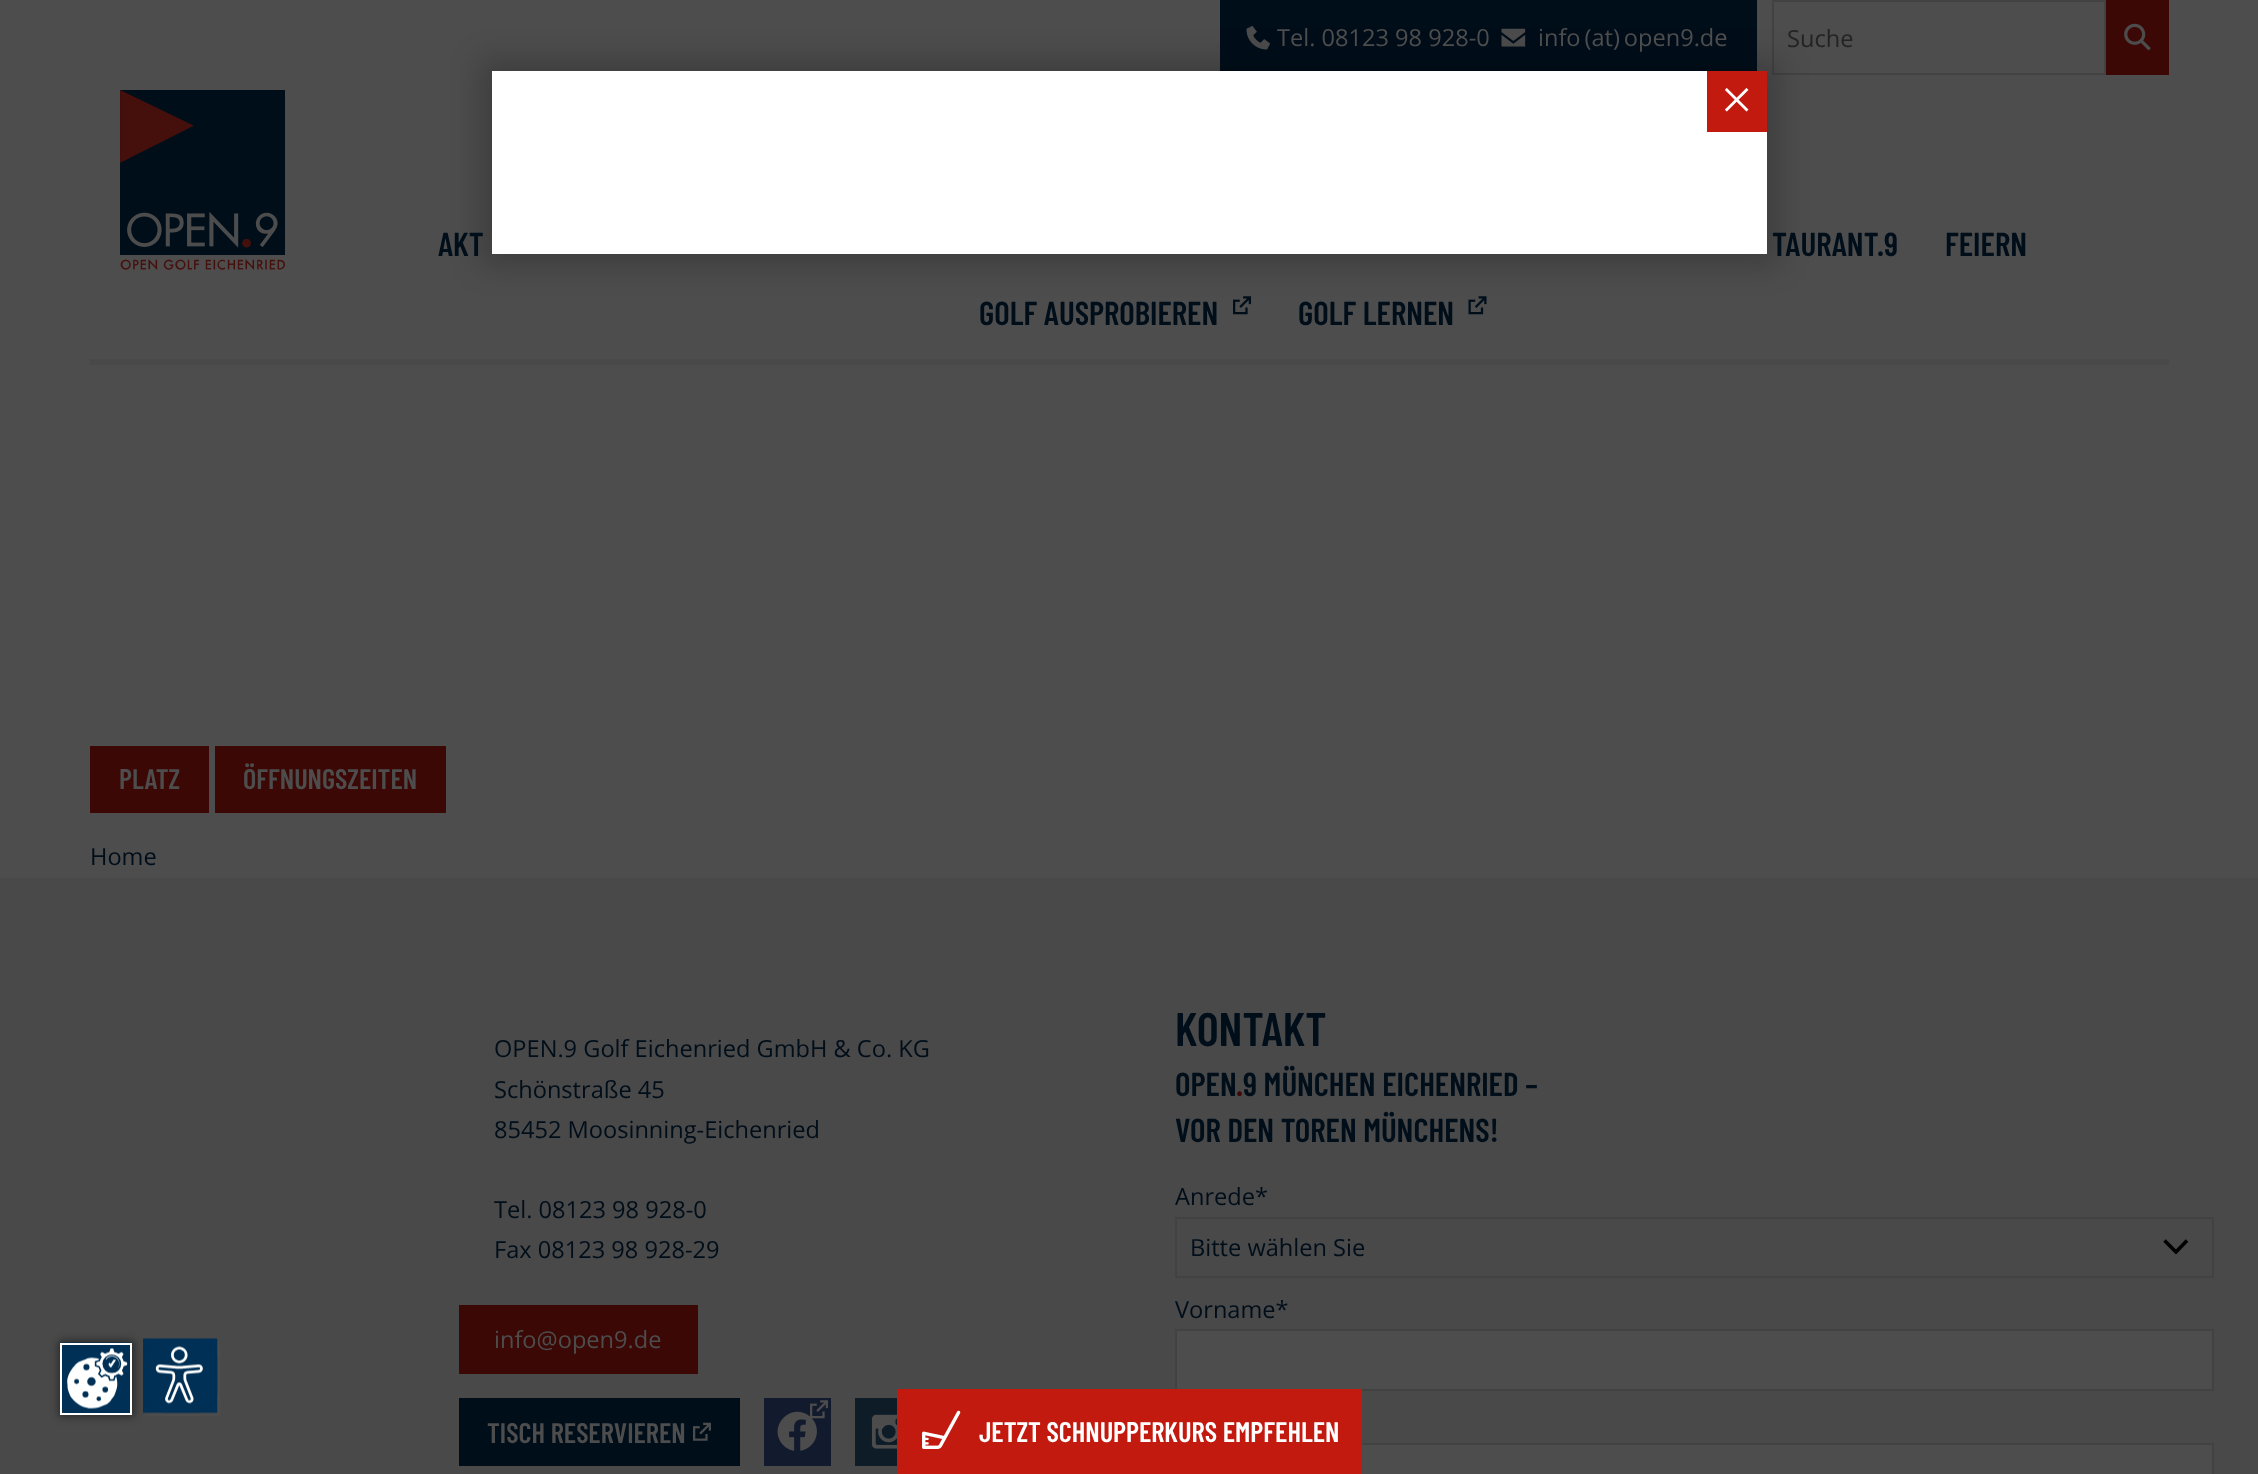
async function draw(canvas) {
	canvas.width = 2258;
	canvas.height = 1474;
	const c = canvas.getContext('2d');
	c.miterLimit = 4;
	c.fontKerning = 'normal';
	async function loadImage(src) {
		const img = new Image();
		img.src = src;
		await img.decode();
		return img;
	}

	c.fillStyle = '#4d4d4d';
	c.fillRect(0, 0, 2258, 1474);
	c.fillStyle = '#000e1a';
	c.fillRect(1220, 0, 537, 71);
	c.drawImage(await loadImage('img2.png'), 1246, 25, 25, 25);
	c.drawImage(await loadImage('img3.png'), 1501, 28, 25, 19);
	c.strokeStyle = '#424242';
	c.lineWidth = 2;
	c.strokeRect(1773, 1, 332, 73);
	c.drawImage(await loadImage('img6.png'), 1233, 296, 18, 19);
	c.drawImage(await loadImage('img7.png'), 1468, 296, 19, 19);
	c.fillStyle = '#00000033';
	c.filter = 'blur(15px)';
	c.beginPath();
	c.rect(480, 59, 1299, 207);
	c.fill();
	c.filter = 'none';
	c.fillStyle = '#fff';
	c.fillRect(492, 71, 1275, 183);
	c.fillStyle = '#c31a10';
	c.fillRect(1707, 71, 60, 61);
	c.drawImage(await loadImage('img1.png'), 1724, 88, 25, 24);
	c.font = '23.6px Open Sans';
	c.fillStyle = '#4d4d4d';
	c.fillText('Tel. 08123 98 928-0', 1277, 46);
	c.fillText('info (at) open9.de', 1538, 46);
	c.fillStyle = '#232323';
	c.fillText('Suche', 1787, 47);
	c.fillStyle = '#3b0805';
	c.fillRect(2106, 0, 63, 75);
	c.drawImage(await loadImage('img4.png'), 2124, 23, 27, 28);
	c.drawImage(await loadImage('img5.png'), 120, 90, 165, 180);
	c.fillStyle = '#494949';
	c.fillRect(90, 359, 2079, 6);
	c.font = 'italic 600 33.1px Barlow Condensed';
	c.fillStyle = '#000e1a';
	for (const [text, x, y] of [
		['AKT', 438, 256],
		['TAURANT.9', 1772, 256],
		['FEIERN', 1945, 256],
		['GOLF AUSPROBIEREN', 979, 325],
		['GOLF LERNEN', 1298, 325],
	]) {
		c.fillText(text, x, y);
	}
	c.fillStyle = '#3b0805';
	c.fillRect(90, 746, 119, 67);
	c.font = 'italic 600 28.4px Barlow Condensed';
	c.fillStyle = '#4d4d4d';
	c.fillText('PLATZ', 119, 789);
	c.fillStyle = '#3b0805';
	c.fillRect(215, 746, 231, 67);
	c.fillStyle = '#4d4d4d';
	c.fillText('ÖFFNUNGSZEITEN', 243, 789);
	c.font = '23.6px Open Sans';
	c.fillStyle = '#000e1a';
	c.fillText('Home', 90, 865);
	c.fillStyle = '#494949';
	c.fillRect(0, 878, 2258, 596);
	c.fillStyle = '#00000080';
	c.filter = 'blur(4.5px)';
	c.beginPath();
	c.rect(59, 1341, 75, 75);
	c.fill();
	c.filter = 'none';
	c.drawImage(await loadImage('img8.png'), 60, 1342, 72, 71);
	c.strokeStyle = '#fff';
	c.strokeRect(61, 1344, 70, 70);
	c.drawImage(await loadImage('img9.png'), 143, 1338, 77, 78);
	c.fillStyle = '#000e1a';
	for (const [text, x, y] of [
		['OPEN.9 Golf Eichenried GmbH & Co. KG', 494, 1057],
		['Schönstraße 45', 494, 1098],
		['85452 Moosinning-Eichenried', 494, 1138],
		['Tel. 08123 98 928-0', 494, 1218],
		['Fax 08123 98 928-29', 494, 1258],
	]) {
		c.fillText(text, x, y);
	}
	c.fillStyle = '#3b0805';
	c.fillRect(459, 1305, 239, 69);
	c.fillStyle = '#4d4d4d';
	c.fillText('info@open9.de', 494, 1348);
	c.fillStyle = '#000e1a';
	c.fillRect(459, 1398, 281, 68);
	c.font = 'italic 600 28.4px Barlow Condensed';
	c.fillStyle = '#4d4d4d';
	c.fillText('TISCH RESERVIEREN', 487, 1443);
	c.drawImage(await loadImage('img10.png'), 693, 1422, 18, 19);
	c.drawImage(await loadImage('img11.png'), 764, 1398, 67, 68);
	c.drawImage(await loadImage('img12.png'), 810, 1400, 18, 19);
	c.drawImage(await loadImage('img13.png'), 855, 1398, 42, 68);
	c.font = 'italic 600 47px Barlow Condensed';
	c.fillStyle = '#000e1a';
	c.fillText('KONTAKT', 1175, 1046);
	c.font = 'italic 600 33.1px Barlow Condensed';
	c.fillText('OPEN', 1175, 1096);
	c.fillStyle = '#3b0805';
	c.fillText('.', 1236, 1096);
	c.fillStyle = '#000e1a';
	c.fillText('9 MÜNCHEN EICHENRIED –', 1243, 1096);
	c.fillText('VOR DEN TOREN MÜNCHENS!', 1175, 1142);
	c.font = '23.6px Open Sans';
	c.fillText('Anrede*', 1175, 1205);
	c.beginPath();
	c.moveTo(2175, 1253);
	c.lineTo(2187, 1240.5);
	c.moveTo(2177, 1253);
	c.lineTo(2164.5, 1240.5);
	c.strokeStyle = '#000';
	c.lineWidth = 3.6;
	c.stroke();
	c.strokeStyle = '#424242';
	c.lineWidth = 2;
	c.strokeRect(1176, 1218, 1037, 59);
	c.fillText('Bitte wählen Sie', 1190, 1256);
	c.fillText('Vorname*', 1175, 1318);
	c.fillStyle = '#4d4d4d';
	c.beginPath();
	c.rect(1176, 1330, 1037, 60);
	c.fill();
	c.stroke();
	c.fillRect(1362, 1445, 850, 29);
	c.strokeRect(1176, 1444, 1037, 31);
	c.fillStyle = '#c31a10';
	c.fillRect(897, 1389, 465, 85);
	c.drawImage(await loadImage('img14.png'), 922, 1410, 39, 39);
	c.font = 'italic 600 28.4px Barlow Condensed';
	c.fillStyle = '#fff';
	c.fillText('JETZT SCHNUPPERKURS EMPFEHLEN', 979, 1442);
}

draw(document.querySelector('canvas'));
